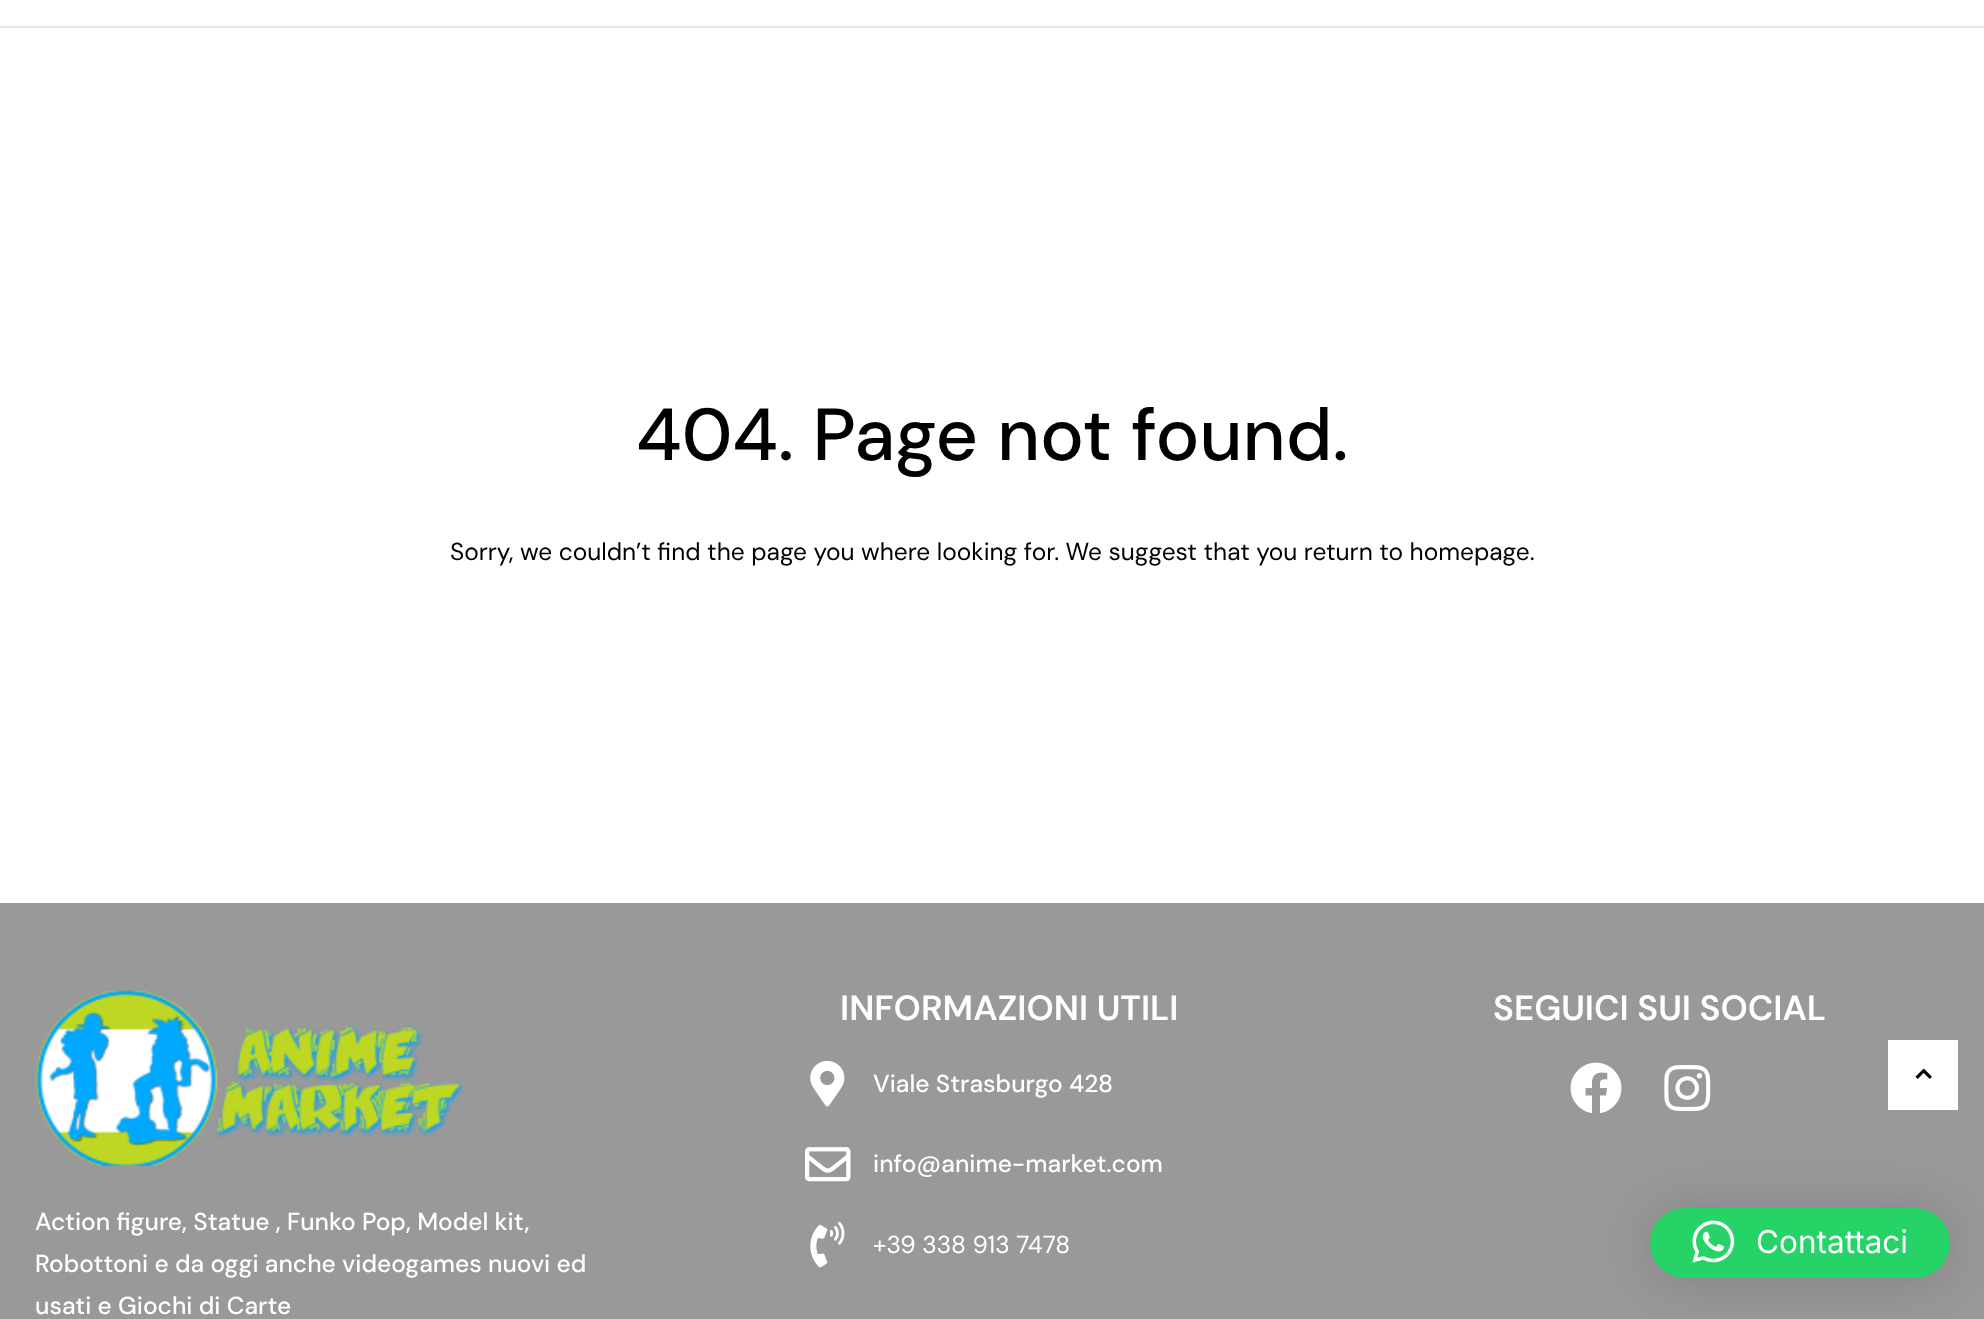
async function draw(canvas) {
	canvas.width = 1984;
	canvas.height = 1319;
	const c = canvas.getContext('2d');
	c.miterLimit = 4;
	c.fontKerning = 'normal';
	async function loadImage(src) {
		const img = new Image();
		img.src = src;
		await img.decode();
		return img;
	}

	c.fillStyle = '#fff';
	c.fillRect(0, 0, 1984, 1319);
	c.fillStyle = '#e5e5e5';
	c.fillRect(0, 26, 1984, 2);
	c.font = '500 73.5px DM Sans';
	c.fillStyle = '#000';
	c.fillText('404. Page not found.', 636, 460);
	c.font = '24.5px DM Sans';
	c.fillText('Sorry, we couldn’t find the page you where looking for. We suggest that you return to homepage.', 450, 560);
	c.fillStyle = '#999';
	c.fillRect(0, 903, 1984, 416);
	c.font = '600 35px DM Sans';
	c.fillStyle = '#fff';
	c.fillText('INFORMAZIONI UTILI', 840, 1020);
	c.drawImage(await loadImage('img1.png'), 810, 1060, 35, 47);
	c.font = '500 24.5px DM Sans';
	c.fillText('Viale Strasburgo 428', 873, 1092);
	c.drawImage(await loadImage('img2.png'), 805, 1147, 46, 35);
	c.fillText('info@anime-market.com', 873, 1172);
	c.drawImage(await loadImage('img3.png'), 810, 1221, 35, 47);
	c.font = '24.5px DM Sans';
	c.fillText('+39 338 913 7478', 873, 1253);
	c.font = '600 35px DM Sans';
	c.fillText('SEGUICI SUI SOCIAL', 1493, 1020);
	c.drawImage(await loadImage('img4.png'), 1570, 1062, 52, 52);
	c.drawImage(await loadImage('img5.png'), 1664, 1065, 47, 46);
	c.drawImage(await loadImage('img6.png'), 35, 990, 430, 176);
	c.font = '500 24.5px DM Sans';
	for (const [text, x, y] of [
		['Action figure, Statue , Funko Pop, Model kit,', 35, 1230],
		['Robottoni e da oggi anche videogames nuovi ed', 35, 1272],
		['usati e Giochi di Carte', 35, 1314],
	]) {
		c.fillText(text, x, y);
	}
	c.fillRect(1888, 1040, 70, 70);
	c.drawImage(await loadImage('img7.png'), 1915, 1068, 17, 11);
	c.fillStyle = '#00000029';
	c.filter = 'blur(28px)';
	c.beginPath();
	c.roundRect(1650, 1211, 300, 70, 35);
	c.fill();
	c.filter = 'none';
	c.fillStyle = '#25d366';
	c.beginPath();
	c.roundRect(1650, 1208, 300, 70, 35);
	c.fill();
	c.drawImage(await loadImage('img8.png'), 1692, 1220, 43, 43);
	c.font = '31.5px Inter';
	c.fillStyle = '#fff';
	c.fillText('Contattaci', 1756, 1253);
}

draw(document.querySelector('canvas'));
